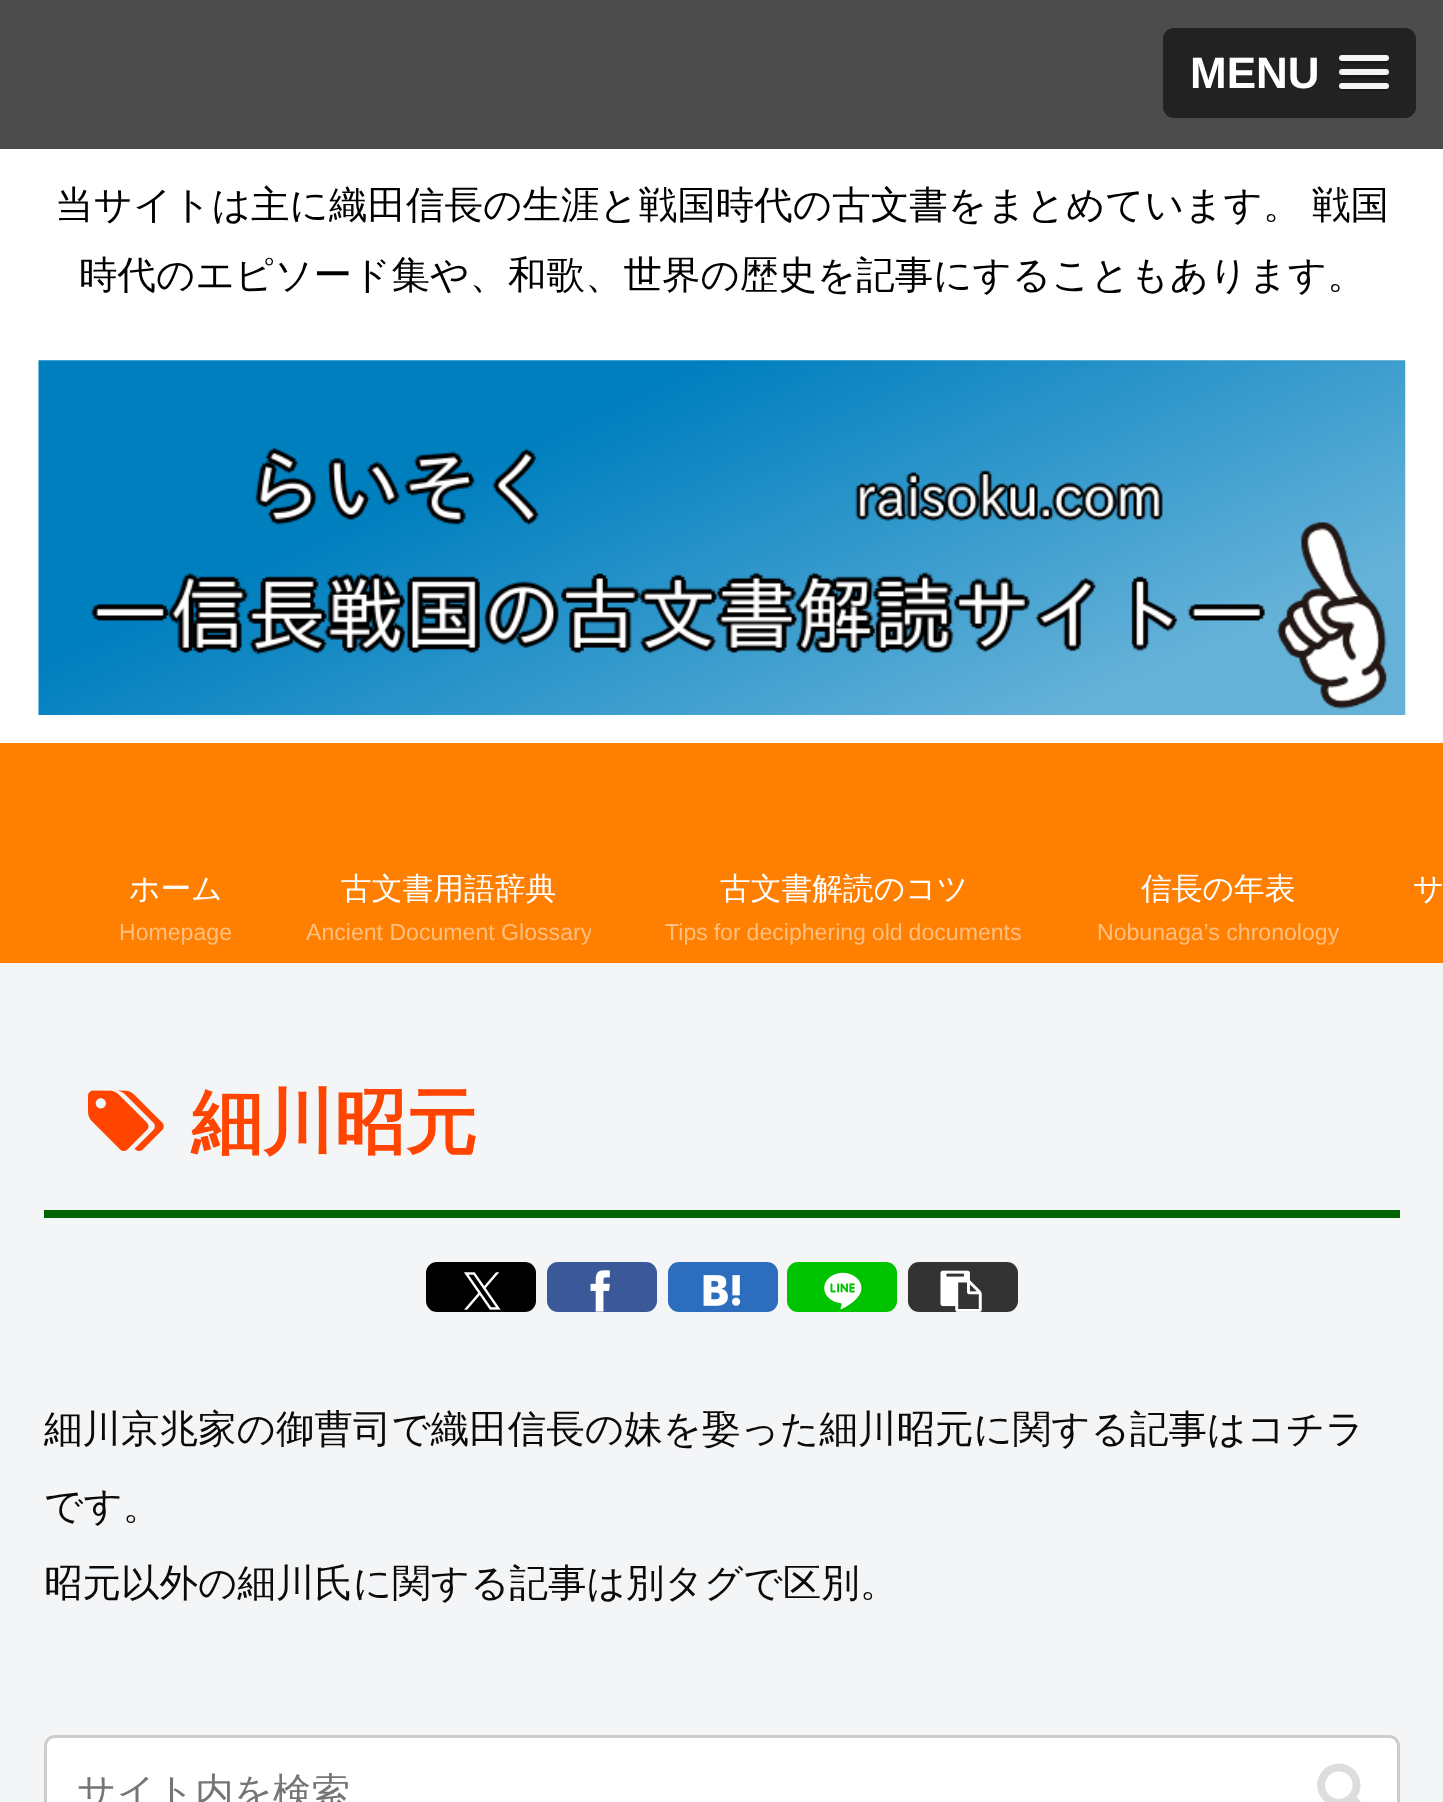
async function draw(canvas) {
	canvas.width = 1443;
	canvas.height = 1802;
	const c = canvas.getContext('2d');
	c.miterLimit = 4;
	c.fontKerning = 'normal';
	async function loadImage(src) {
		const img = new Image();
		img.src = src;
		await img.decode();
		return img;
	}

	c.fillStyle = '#f4f5f7';
	c.fillRect(0, 0, 1443, 1802);
	c.fillStyle = '#4c4c4c';
	c.fillRect(0, 0, 1443, 149);
	c.fillStyle = '#222';
	c.beginPath();
	c.roundRect(1163, 28, 253, 90, 11);
	c.fill();
	c.font = 'bold 44px Liberation Sans';
	c.fillStyle = '#fff';
	c.fillText('MENU', 1190, 88);
	c.fillStyle = '#1a1a1a';
	c.beginPath();
	c.moveTo(1340, 59);
	c.bezierCurveTo(1338, 61, 1339, 64, 1341, 64);
	c.lineTo(1387, 64);
	c.bezierCurveTo(1389, 64, 1390, 61, 1388, 59);
	c.bezierCurveTo(1388, 60, 1387, 60, 1386, 60);
	c.lineTo(1342, 60);
	c.bezierCurveTo(1341, 60, 1340, 60, 1340, 59);
	c.closePath();
	c.fill();
	c.fillStyle = '#f5f5f5';
	c.beginPath();
	c.roundRect(1339, 55, 50, 6, 3);
	c.fill();
	c.fillStyle = '#1a1a1a';
	c.beginPath();
	c.moveTo(1340, 73);
	c.lineTo(1339, 76);
	c.bezierCurveTo(1340, 80, 1348, 78, 1349, 78);
	c.lineTo(1379, 78);
	c.bezierCurveTo(1380, 78, 1388, 80, 1389, 76);
	c.lineTo(1388, 73);
	c.lineTo(1386, 74);
	c.lineTo(1342, 74);
	c.closePath();
	c.fill();
	c.fillStyle = '#f5f5f5';
	c.beginPath();
	c.roundRect(1339, 69, 50, 6, 3);
	c.fill();
	c.fillStyle = '#1a1a1a';
	c.beginPath();
	c.moveTo(1339, 86);
	c.bezierCurveTo(1336, 92, 1349, 91, 1349, 91);
	c.lineTo(1379, 91);
	c.bezierCurveTo(1379, 91, 1392, 92, 1389, 86);
	c.bezierCurveTo(1388, 87, 1387, 88, 1386, 88);
	c.lineTo(1342, 88);
	c.bezierCurveTo(1341, 88, 1340, 87, 1339, 86);
	c.closePath();
	c.fill();
	c.fillStyle = '#f5f5f5';
	c.beginPath();
	c.roundRect(1339, 83, 50, 6, 3);
	c.fill();
	c.fillStyle = '#fff';
	c.fillRect(0, 149, 1443, 594);
	c.wordSpacing = '-1px';
	c.font = '500 38.5px WenQuanYi Zen Hei';
	c.fillStyle = '#000';
	c.fillText('当サイトは主に織田信長の生涯と戦国時代の古文書をまとめています。 戦国', 55, 218);
	c.wordSpacing = '0px';
	c.fillText('時代のエピソード集や、和歌、世界の歴史を記事にすることもあります。', 79, 288);
	c.drawImage(await loadImage('img1.png'), 38, 360, 1368, 355);
	c.fillStyle = '#ff7f00';
	c.fillRect(0, 743, 1443, 220);
	c.font = '500 30.75px WenQuanYi Zen Hei';
	c.fillStyle = '#fff';
	c.fillText('ホーム', 129, 899);
	c.save();
	c.beginPath();
	c.rect(118, 910, 113, 44);
	c.clip();
	c.font = '23.1px Liberation Sans';
	c.fillStyle = '#ffbf80';
	c.fillText('Homepage', 119, 940);
	c.restore();
	c.fillText('古文書用語辞典', 341, 899);
	c.save();
	c.beginPath();
	c.rect(305, 910, 286, 44);
	c.clip();
	c.font = '23.1px Liberation Sans';
	c.fillStyle = '#ffbf80';
	c.fillText('Ancient Document Glossary', 306, 940);
	c.restore();
	c.fillText('古文書解読のコツ', 720, 899);
	c.wordSpacing = '-0.5px';
	c.font = '23.1px Liberation Sans';
	c.fillStyle = '#ffbf80';
	c.fillText('Tips for deciphering old documents', 665, 940);
	c.wordSpacing = '0px';
	c.font = '500 30.75px WenQuanYi Zen Hei';
	c.fillStyle = '#fff';
	c.fillText('信長の年表', 1141, 899);
	c.font = '23.1px Liberation Sans';
	c.fillStyle = '#ffbf80';
	c.fillText('Nobunaga’s chronology', 1097, 940);
	c.font = '500 30.75px WenQuanYi Zen Hei';
	c.fillStyle = '#fff';
	c.fillText('サ', 1413, 899);
	c.fillStyle = '#006400';
	c.fillRect(44, 1210, 1356, 8);
	c.drawImage(await loadImage('img2.png'), 88, 1090, 76, 61);
	c.font = 'bold 71.5px WenQuanYi Zen Hei';
	c.fillStyle = '#ff4500';
	c.fillText('細川昭元', 191, 1147);
	c.fillStyle = '#000';
	c.beginPath();
	c.roundRect(426, 1262, 110, 50, 11);
	c.fill();
	c.drawImage(await loadImage('img3.png'), 464, 1272, 37, 38);
	c.fillStyle = '#3b5998';
	c.beginPath();
	c.roundRect(547, 1262, 110, 50, 11);
	c.fill();
	c.drawImage(await loadImage('img4.png'), 590, 1270, 20, 42);
	c.fillStyle = '#2c6ebd';
	c.beginPath();
	c.roundRect(668, 1262, 110, 50, 11);
	c.fill();
	c.drawImage(await loadImage('img5.png'), 703, 1275, 38, 31);
	c.fillStyle = '#00c300';
	c.beginPath();
	c.roundRect(787, 1262, 110, 50, 11);
	c.fill();
	c.drawImage(await loadImage('img6.png'), 824, 1272, 38, 38);
	c.fillStyle = '#333';
	c.beginPath();
	c.roundRect(908, 1262, 110, 50, 11);
	c.fill();
	c.drawImage(await loadImage('img7.png'), 940, 1270, 42, 42);
	c.font = '500 38.5px WenQuanYi Zen Hei';
	c.fillStyle = '#0a0a0a';
	for (const [text, x, y] of [
		['細川京兆家の御曹司で織田信長の妹を娶った細川昭元に関する記事はコチラ', 44, 1442],
		['です。', 44, 1519],
		['昭元以外の細川氏に関する記事は別タグで区別。', 44, 1596],
	]) {
		c.fillText(text, x, y);
	}
	c.fillStyle = '#fff';
	c.beginPath();
	c.roundRect(45.5, 1736.5, 1353, 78, 9.5);
	c.fill();
	c.strokeStyle = '#ccc';
	c.lineWidth = 3;
	c.stroke();
	c.fillStyle = '#757575';
	c.fillText('サイト内を検索', 77, 1805);
	c.drawImage(await loadImage('img8.png'), 1317, 1763, 44, 39);
}

draw(document.querySelector('canvas'));
